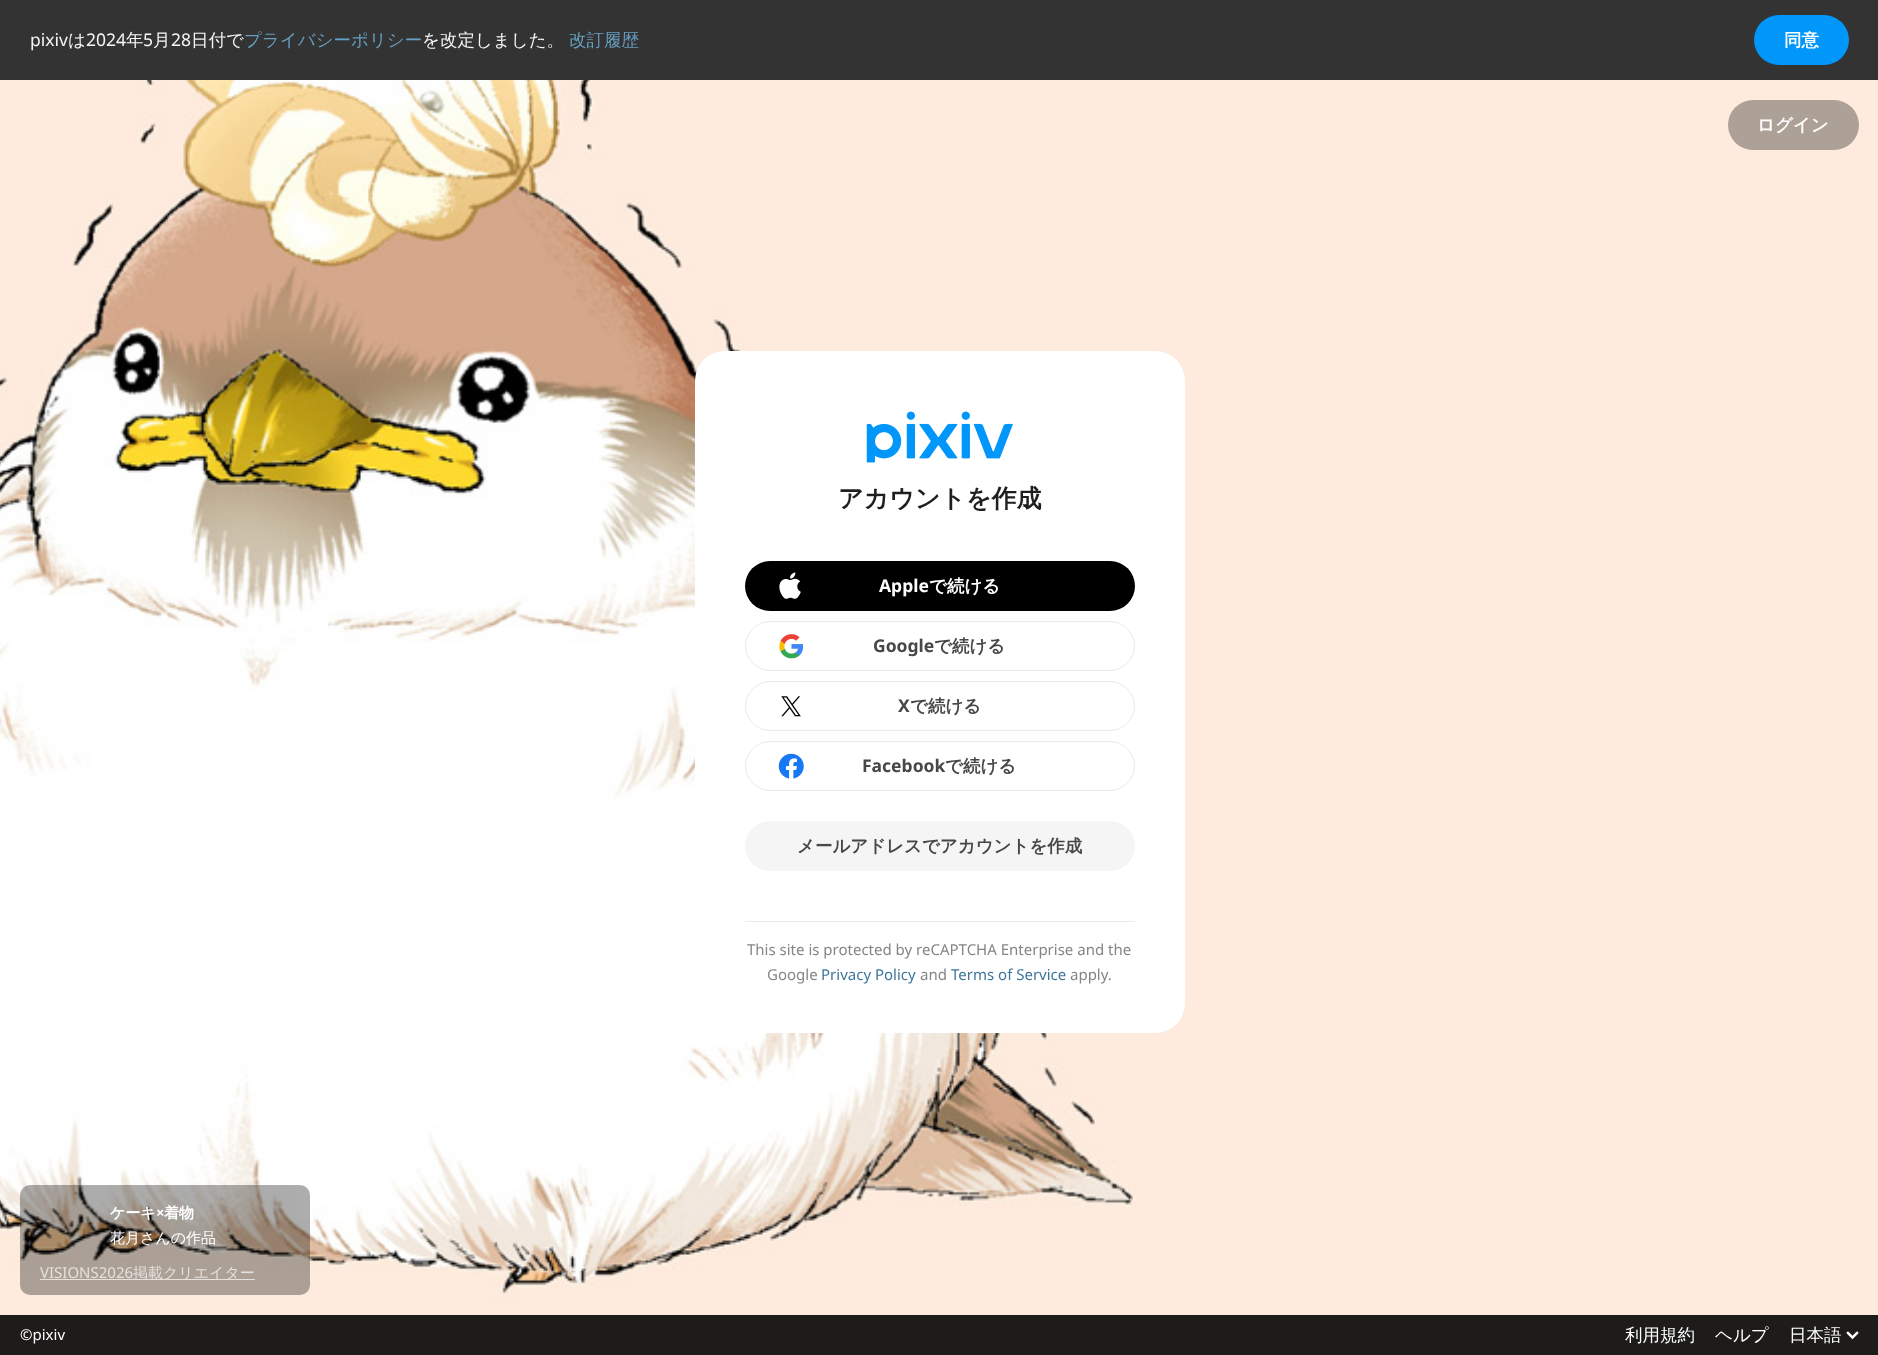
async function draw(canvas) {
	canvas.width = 1878;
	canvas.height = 1355;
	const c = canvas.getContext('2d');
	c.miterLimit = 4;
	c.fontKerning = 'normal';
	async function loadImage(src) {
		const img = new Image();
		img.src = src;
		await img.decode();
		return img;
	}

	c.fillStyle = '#fff';
	c.fillRect(0, 0, 1878, 1355);
	c.fillStyle = '#333';
	c.fillRect(0, 0, 1878, 80);
	c.font = '17.5px Noto Sans';
	c.fillStyle = '#f5f5f5';
	c.fillText('pixiv', 30, 46);
	c.font = '500 17.5px WenQuanYi Zen Hei';
	c.fillText('は', 68, 46);
	c.font = '17.5px Noto Sans';
	c.fillText('2024', 86, 46);
	c.font = '500 17.5px WenQuanYi Zen Hei';
	c.fillText('年', 126, 46);
	c.font = '17.5px Noto Sans';
	c.fillText('5', 143, 46);
	c.font = '500 17.5px WenQuanYi Zen Hei';
	c.fillText('月', 153, 46);
	c.font = '17.5px Noto Sans';
	c.fillText('28', 171, 46);
	c.font = '500 17.5px WenQuanYi Zen Hei';
	c.fillText('日付で', 191, 46);
	c.fillStyle = '#669fc2';
	c.fillText('プライバシーポリシー', 244, 46);
	c.fillStyle = '#f5f5f5';
	c.fillText('を改定しました。', 422, 46);
	c.fillStyle = '#669fc2';
	c.fillText('改訂履歴', 569, 46);
	c.fillStyle = '#0096fa';
	c.beginPath();
	c.roundRect(1754, 15, 95, 50, 25);
	c.fill();
	c.font = 'bold 17.5px WenQuanYi Zen Hei';
	c.fillStyle = '#fff';
	c.fillText('同意', 1784, 46);
	c.drawImage(await loadImage('img6.png'), 0, 80, 1878, 1235);
	c.fillStyle = '#ada096';
	c.beginPath();
	c.roundRect(1728, 100, 131, 50, 25);
	c.fill();
	c.fillStyle = '#fff';
	c.fillText('ログイン', 1757, 131);
	c.beginPath();
	c.roundRect(695, 351, 490, 682, 30);
	c.fill();
	c.drawImage(await loadImage('img1.png'), 866, 411, 147, 52);
	c.font = 'bold 25px WenQuanYi Zen Hei';
	c.fillStyle = '#1f1f1f';
	c.fillText('アカウントを作成', 838, 507);
	c.fillStyle = '#000';
	c.beginPath();
	c.roundRect(745, 561, 390, 50, 25);
	c.fill();
	c.drawImage(await loadImage('img2.png'), 779, 572, 22, 27);
	c.font = 'bold 17.5px Noto Sans';
	c.fillStyle = '#fff';
	c.fillText('Apple', 879, 592);
	c.font = 'bold 17.5px WenQuanYi Zen Hei';
	c.fillText('で続ける', 929, 592);
	c.beginPath();
	c.roundRect(745.5, 621.5, 389, 49, 24.5);
	c.strokeStyle = '#ebebeb';
	c.stroke();
	c.drawImage(await loadImage('img3.png'), 779, 634, 25, 25);
	c.font = 'bold 17.5px Noto Sans';
	c.fillStyle = '#474747';
	c.fillText('Google', 873, 652);
	c.font = 'bold 17.5px WenQuanYi Zen Hei';
	c.fillText('で続ける', 934, 652);
	c.beginPath();
	c.roundRect(745.5, 681.5, 389, 49, 24.5);
	c.stroke();
	c.drawImage(await loadImage('img4.png'), 781, 696, 20, 21);
	c.font = 'bold 17.5px Noto Sans';
	c.fillText('X', 898, 712);
	c.font = 'bold 17.5px WenQuanYi Zen Hei';
	c.fillText('で続ける', 910, 712);
	c.beginPath();
	c.roundRect(745.5, 741.5, 389, 49, 24.5);
	c.stroke();
	c.drawImage(await loadImage('img5.png'), 778, 753, 26, 26);
	c.font = 'bold 17.5px Noto Sans';
	c.fillText('Facebook', 862, 772);
	c.font = 'bold 17.5px WenQuanYi Zen Hei';
	c.fillText('で続ける', 945, 772);
	c.fillStyle = '#f5f5f5';
	c.beginPath();
	c.roundRect(745, 821, 390, 50, 25);
	c.fill();
	c.fillStyle = '#474747';
	c.fillText('メールアドレスでアカウントを作成', 797, 852);
	c.fillStyle = '#ebebeb';
	c.fillRect(745, 921, 390, 1);
	c.font = '15px Noto Sans';
	c.fillStyle = '#858585';
	c.fillText('This site is protected by reCAPTCHA Enterprise and the', 747, 955);
	c.fillText('Google', 767, 980);
	c.fillStyle = '#3d7699';
	c.fillText('Privacy Policy', 821, 980);
	c.fillStyle = '#858585';
	c.fillText('and', 920, 980);
	c.fillStyle = '#3d7699';
	c.fillText('Terms of Service', 951, 980);
	c.fillStyle = '#858585';
	c.fillText('apply.', 1070, 980);
	c.fillStyle = '#00000052';
	c.beginPath();
	c.roundRect(20, 1185, 290, 110, 10);
	c.fill();
	c.font = 'bold 15px WenQuanYi Zen Hei';
	c.fillStyle = '#fff';
	c.fillText('ケーキ', 110, 1218);
	c.font = 'bold 15px Noto Sans';
	c.fillText('×', 156, 1218);
	c.font = 'bold 15px WenQuanYi Zen Hei';
	c.fillText('着物', 164, 1218);
	c.font = '500 15px WenQuanYi Zen Hei';
	c.fillText('花月さんの作品', 110, 1243);
	c.font = '15px Noto Sans';
	c.fillStyle = '#e5e1dd';
	c.fillText('VISIONS2026', 40, 1278);
	c.fillRect(40, 1279, 215, 1);
	c.font = '500 15px WenQuanYi Zen Hei';
	c.fillText('掲載クリエイター', 133, 1278);
	c.fillStyle = '#1e1c1b';
	c.fillRect(0, 1315, 1878, 40);
	c.font = '15px Noto Sans';
	c.fillStyle = '#fff';
	c.fillText('©pixiv', 20, 1340);
	c.font = '500 17.5px WenQuanYi Zen Hei';
	for (const [text, x, y] of [
		['利用規約', 1625, 1341],
		['ヘルプ', 1715, 1341],
		['日本語', 1789, 1341],
	]) {
		c.fillText(text, x, y);
	}
	c.drawImage(await loadImage('img7.png'), 1846, 1331, 13, 9);
}

draw(document.querySelector('canvas'));
